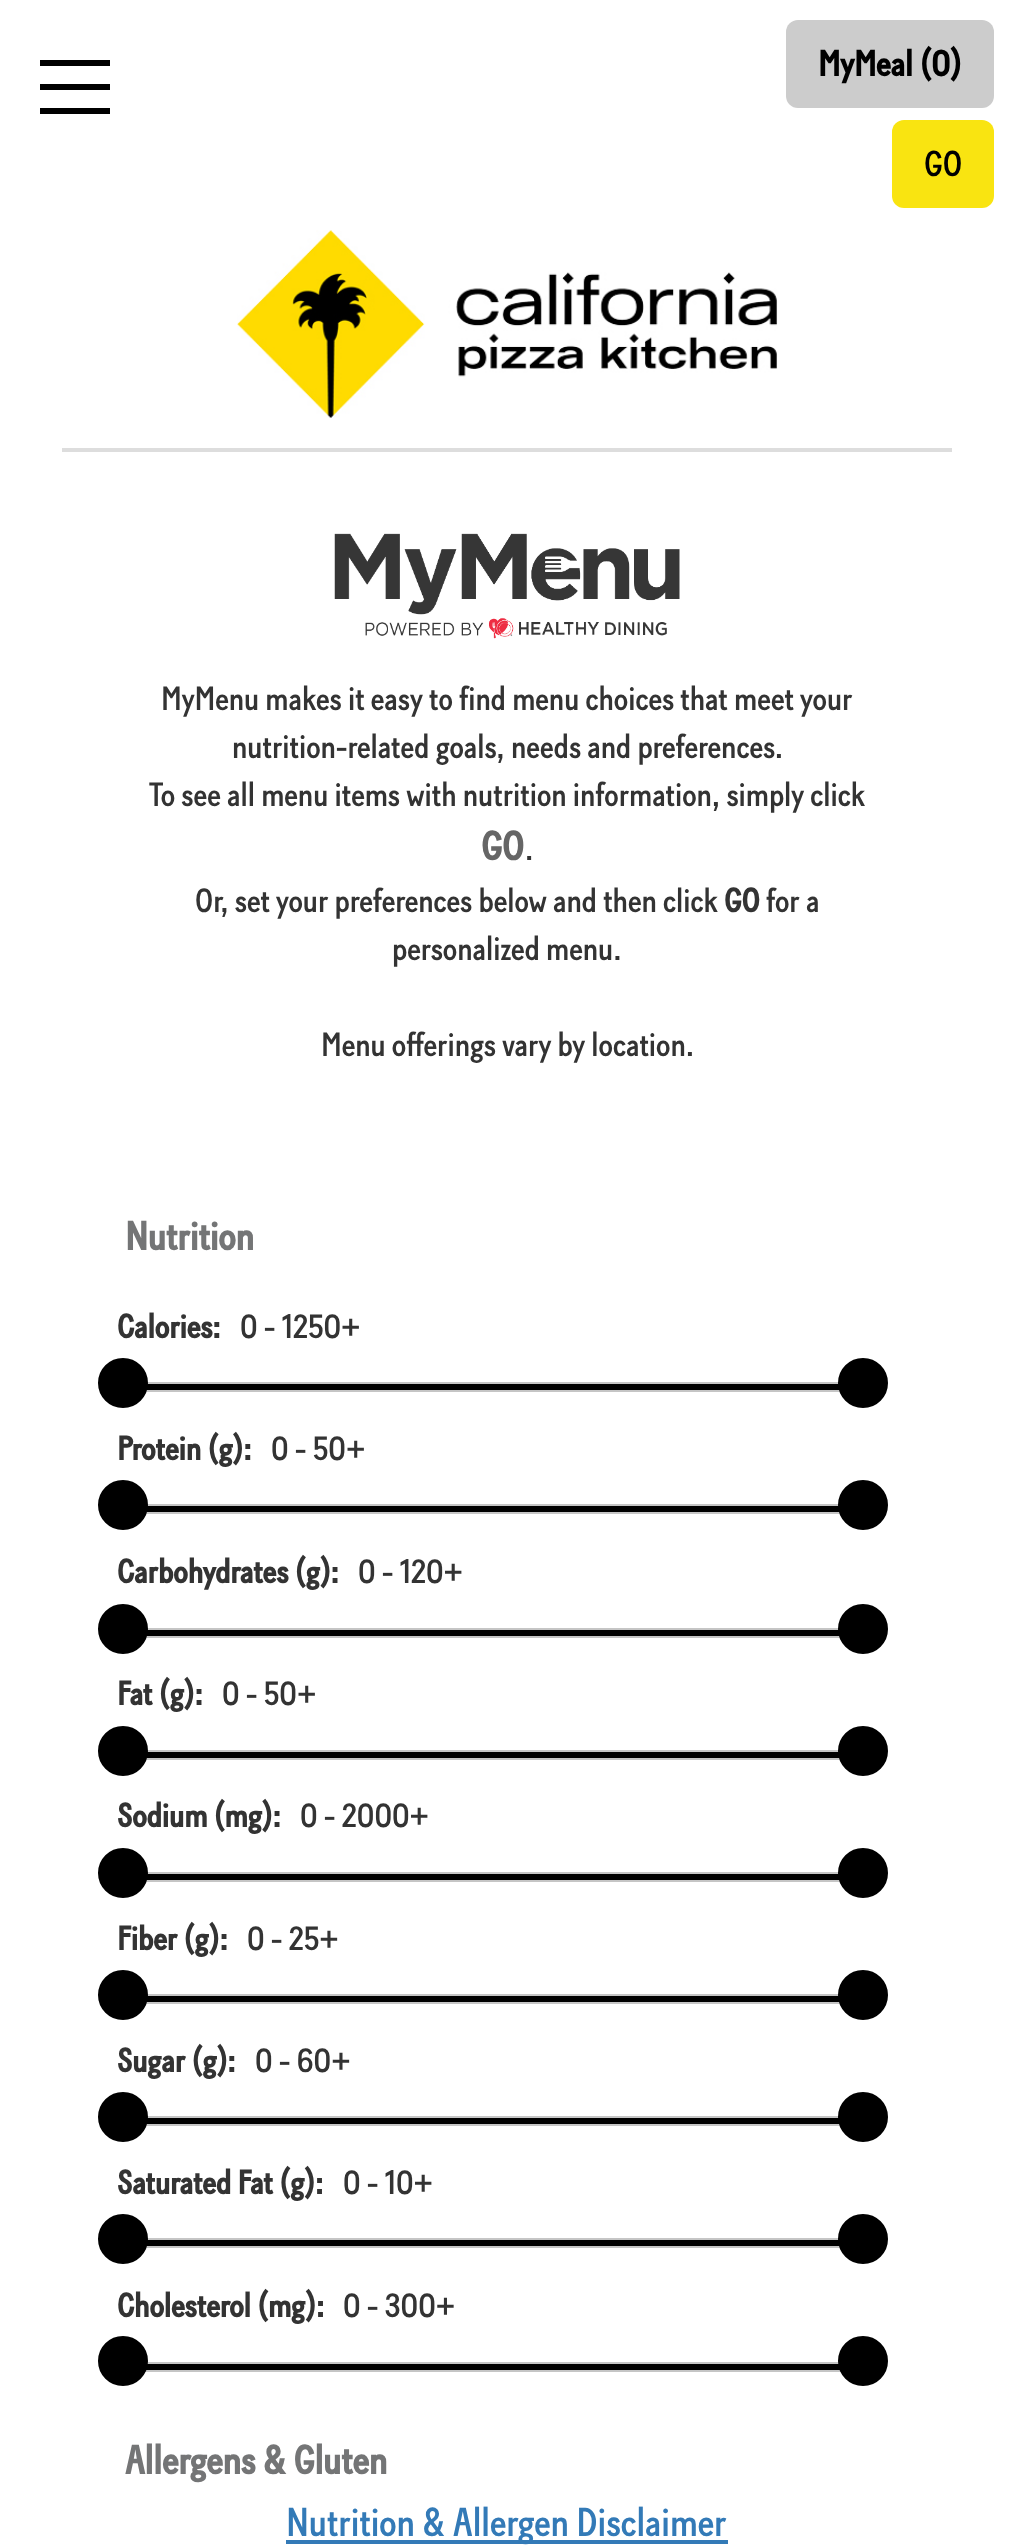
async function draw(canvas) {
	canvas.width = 1013;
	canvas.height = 2547;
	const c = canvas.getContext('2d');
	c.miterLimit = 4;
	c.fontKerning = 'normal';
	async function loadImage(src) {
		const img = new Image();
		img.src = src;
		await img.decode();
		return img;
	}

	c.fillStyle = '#fff';
	c.fillRect(0, 0, 1013, 2547);
	for (const [x, y, w, h, color] of [
		[40, 84, 70, 6, '#000'],
		[40, 60, 70, 6, '#000'],
		[40, 108, 70, 6, '#000'],
	]) {
		c.fillStyle = color;
		c.fillRect(x, y, w, h);
	}
	c.fillStyle = '#ccc';
	c.beginPath();
	c.roundRect(786, 20, 208, 88, 12);
	c.fill();
	c.font = 'bold 36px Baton';
	c.fillStyle = '#000';
	c.fillText('MyMeal (0)', 818, 76);
	c.fillStyle = '#f9e411';
	c.beginPath();
	c.roundRect(892, 120, 102, 88, 12);
	c.fill();
	c.font = '500 36px Baton';
	c.fillStyle = '#000';
	c.fillText('GO', 924, 176);
	c.drawImage(await loadImage('img1.png'), 237, 230, 541, 188);
	c.fillStyle = '#ddd';
	c.fillRect(62, 448, 890, 4);
	c.drawImage(await loadImage('img2.png'), 334, 533, 346, 106);
	c.font = '500 33.6px Baton';
	c.fillStyle = '#333';
	for (const [text, x, y] of [
		['MyMenu makes it easy to find menu choices that meet your', 161, 710],
		['nutrition-related goals, needs and preferences.', 232, 758],
		['To see all menu items with nutrition information, simply click', 149, 806],
	]) {
		c.fillText(text, x, y);
	}
	c.font = 'bold 40.25px Baton';
	c.fillStyle = '#666';
	c.fillText('GO', 481, 860);
	c.font = '500 33.6px Baton';
	c.fillStyle = '#333';
	c.fillText('.', 525, 860);
	c.fillText('Or, set your preferences below and then click', 195, 912);
	c.font = 'bold 33.6px Baton';
	c.fillText('GO', 724, 912);
	c.font = '500 33.6px Baton';
	for (const [text, x, y] of [
		['for a', 766, 912],
		['personalized menu.', 392, 960],
		['Menu offerings vary by location.', 321, 1056],
	]) {
		c.fillText(text, x, y);
	}
	c.font = 'bold 40.25px Baton';
	c.fillStyle = '#747576';
	c.fillText('Nutrition', 125, 1250);
	c.font = 'bold 33.6px Baton';
	c.fillStyle = '#333';
	c.fillText('Calories:', 117, 1338);
	c.font = '500 33.6px Baton';
	c.fillText('0 - 1250+', 240, 1338);
	c.strokeStyle = '#c5c5c5';
	c.lineWidth = 2;
	c.strokeRect(117, 1383, 742, 8);
	c.fillStyle = '#000';
	c.fillRect(147, 1384, 692, 6);
	c.beginPath();
	c.arc(123, 1383, 24, 0, 2 * Math.PI);
	c.fill();
	c.strokeStyle = '#000';
	c.stroke();
	c.beginPath();
	c.arc(863, 1383, 24, 0, 2 * Math.PI);
	c.fill();
	c.stroke();
	c.font = 'bold 33.6px Baton';
	c.fillStyle = '#333';
	c.fillText('Protein (g):', 117, 1460);
	c.font = '500 33.6px Baton';
	c.fillText('0 - 50+', 271, 1460);
	c.strokeStyle = '#c5c5c5';
	c.strokeRect(117, 1505, 742, 8);
	c.fillStyle = '#000';
	c.fillRect(147, 1506, 692, 6);
	c.beginPath();
	c.arc(123, 1505, 24, 0, 2 * Math.PI);
	c.fill();
	c.strokeStyle = '#000';
	c.stroke();
	c.beginPath();
	c.arc(863, 1505, 24, 0, 2 * Math.PI);
	c.fill();
	c.stroke();
	c.font = 'bold 33.6px Baton';
	c.fillStyle = '#333';
	c.fillText('Carbohydrates (g):', 117, 1583);
	c.font = '500 33.6px Baton';
	c.fillText('0 - 120+', 358, 1583);
	c.strokeStyle = '#c5c5c5';
	c.strokeRect(117, 1629, 742, 8);
	c.fillStyle = '#000';
	c.fillRect(147, 1630, 692, 6);
	c.beginPath();
	c.arc(123, 1629, 24, 0, 2 * Math.PI);
	c.fill();
	c.strokeStyle = '#000';
	c.stroke();
	c.beginPath();
	c.arc(863, 1629, 24, 0, 2 * Math.PI);
	c.fill();
	c.stroke();
	c.font = 'bold 33.6px Baton';
	c.fillStyle = '#333';
	c.fillText('Fat (g):', 117, 1705);
	c.font = '500 33.6px Baton';
	c.fillText('0 - 50+', 222, 1705);
	c.strokeStyle = '#c5c5c5';
	c.strokeRect(117, 1751, 742, 8);
	c.fillStyle = '#000';
	c.fillRect(147, 1752, 692, 6);
	c.beginPath();
	c.arc(123, 1751, 24, 0, 2 * Math.PI);
	c.fill();
	c.strokeStyle = '#000';
	c.stroke();
	c.beginPath();
	c.arc(863, 1751, 24, 0, 2 * Math.PI);
	c.fill();
	c.stroke();
	c.font = 'bold 33.6px Baton';
	c.fillStyle = '#333';
	c.fillText('Sodium (mg):', 117, 1827);
	c.font = '500 33.6px Baton';
	c.fillText('0 - 2000+', 300, 1827);
	c.strokeStyle = '#c5c5c5';
	c.strokeRect(117, 1873, 742, 8);
	c.fillStyle = '#000';
	c.fillRect(147, 1874, 692, 6);
	c.beginPath();
	c.arc(123, 1873, 24, 0, 2 * Math.PI);
	c.fill();
	c.strokeStyle = '#000';
	c.stroke();
	c.beginPath();
	c.arc(863, 1873, 24, 0, 2 * Math.PI);
	c.fill();
	c.stroke();
	c.font = 'bold 33.6px Baton';
	c.fillStyle = '#333';
	c.fillText('Fiber (g):', 117, 1950);
	c.font = '500 33.6px Baton';
	c.fillText('0 - 25+', 247, 1950);
	c.strokeStyle = '#c5c5c5';
	c.strokeRect(117, 1995, 742, 8);
	c.fillStyle = '#000';
	c.fillRect(147, 1996, 692, 6);
	c.beginPath();
	c.arc(123, 1995, 24, 0, 2 * Math.PI);
	c.fill();
	c.strokeStyle = '#000';
	c.stroke();
	c.beginPath();
	c.arc(863, 1995, 24, 0, 2 * Math.PI);
	c.fill();
	c.stroke();
	c.font = 'bold 33.6px Baton';
	c.fillStyle = '#333';
	c.fillText('Sugar (g):', 117, 2072);
	c.font = '500 33.6px Baton';
	c.fillText('0 - 60+', 255, 2072);
	c.strokeStyle = '#c5c5c5';
	c.strokeRect(117, 2117, 742, 8);
	c.fillStyle = '#000';
	c.fillRect(147, 2118, 692, 6);
	c.beginPath();
	c.arc(123, 2117, 24, 0, 2 * Math.PI);
	c.fill();
	c.strokeStyle = '#000';
	c.stroke();
	c.beginPath();
	c.arc(863, 2117, 24, 0, 2 * Math.PI);
	c.fill();
	c.stroke();
	c.font = 'bold 33.6px Baton';
	c.fillStyle = '#333';
	c.fillText('Saturated Fat (g):', 117, 2194);
	c.font = '500 33.6px Baton';
	c.fillText('0 - 10+', 343, 2194);
	c.strokeStyle = '#c5c5c5';
	c.strokeRect(117, 2239, 742, 8);
	c.fillStyle = '#000';
	c.fillRect(147, 2240, 692, 6);
	c.beginPath();
	c.arc(123, 2239, 24, 0, 2 * Math.PI);
	c.fill();
	c.strokeStyle = '#000';
	c.stroke();
	c.beginPath();
	c.arc(863, 2239, 24, 0, 2 * Math.PI);
	c.fill();
	c.stroke();
	c.font = 'bold 33.6px Baton';
	c.fillStyle = '#333';
	c.fillText('Cholesterol (mg):', 117, 2317);
	c.font = '500 33.6px Baton';
	c.fillText('0 - 300+', 343, 2317);
	c.strokeStyle = '#c5c5c5';
	c.strokeRect(117, 2363, 742, 8);
	c.fillStyle = '#000';
	c.fillRect(146, 2364, 694, 6);
	c.beginPath();
	c.arc(123, 2361, 24, 0, 2 * Math.PI);
	c.fill();
	c.strokeStyle = '#000';
	c.stroke();
	c.beginPath();
	c.arc(863, 2361, 24, 0, 2 * Math.PI);
	c.fill();
	c.stroke();
	c.font = 'bold 40.25px Baton';
	c.fillStyle = '#747576';
	c.fillText('Allergens & Gluten', 125, 2474);
	c.fillStyle = '#337ab7';
	c.fillRect(286, 2540, 442, 4);
	c.font = '500 40.25px Baton';
	c.fillText('Nutrition & Allergen Disclaimer', 286, 2536);
}

draw(document.querySelector('canvas'));
